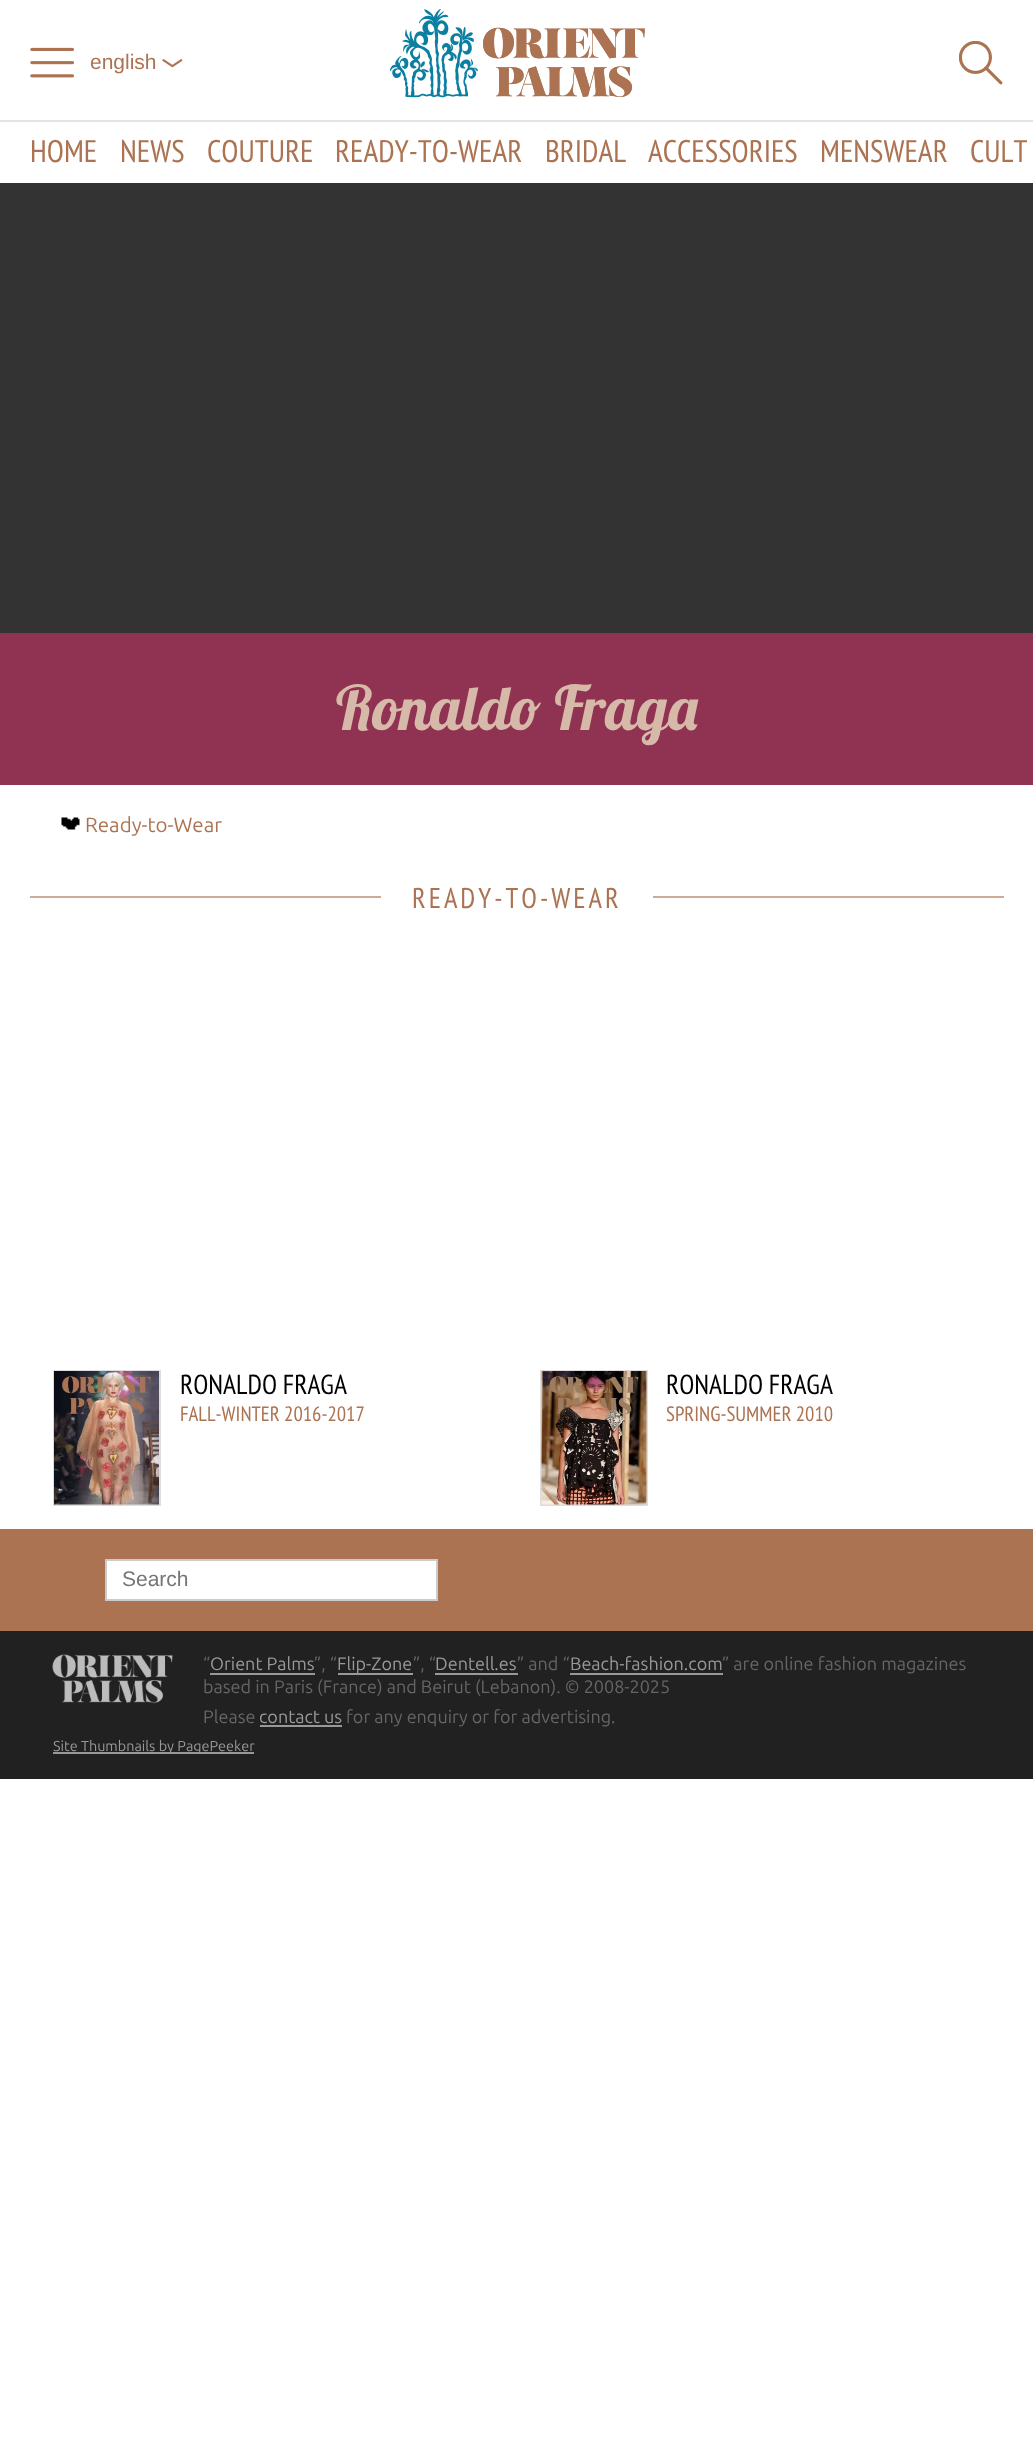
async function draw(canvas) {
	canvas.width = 1033;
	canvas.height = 2450;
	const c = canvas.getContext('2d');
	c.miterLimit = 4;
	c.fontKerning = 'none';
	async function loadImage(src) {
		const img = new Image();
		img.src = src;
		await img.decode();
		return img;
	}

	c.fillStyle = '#fff';
	c.fillRect(0, 0, 1033, 2450);
	c.fillStyle = '#e4e4e4';
	c.fillRect(0, 120, 1033, 2);
	c.drawImage(await loadImage('img1.png'), 30, 47, 44, 31);
	c.font = '21px Liberation Sans';
	c.fillStyle = '#ac7352';
	c.fillText('english', 90, 69);
	c.drawImage(await loadImage('img2.png'), 162, 59, 21, 9);
	c.drawImage(await loadImage('img3.png'), 390, 9, 255, 89);
	c.drawImage(await loadImage('img4.png'), 959, 41, 44, 44);
	c.font = '31.25px PT Sans Narrow';
	for (const [text, x, y] of [
		['HOME', 30, 162],
		['NEWS', 120, 162],
		['COUTURE', 207, 162],
		['READY-TO-WEAR', 335, 162],
		['BRIDAL', 545, 162],
		['ACCESSORIES', 648, 162],
		['MENSWEAR', 820, 162],
		['CULT', 970, 162],
	]) {
		c.fillText(text, x, y);
	}
	c.fillStyle = '#333';
	c.fillRect(0, 183, 1033, 450);
	c.fillStyle = '#903352';
	c.fillRect(0, 633, 1033, 152);
	c.font = '61.25px "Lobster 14"';
	c.fillStyle = '#d6b9a9';
	c.fillText('Ronaldo Fraga', 336, 730);
	c.drawImage(await loadImage('img5.png'), 61, 817, 19, 13);
	c.font = '20.5px Ubuntu';
	c.fillStyle = '#ac7352';
	c.fillText('Ready-to-Wear', 85, 832);
	c.fillStyle = '#cdab97';
	c.fillRect(30, 896, 974, 2);
	c.fillStyle = '#fff';
	c.fillRect(381, 896, 272, 2);
	c.letterSpacing = '3px';
	c.font = '28.5px PT Sans Narrow';
	c.fillStyle = '#ac7352';
	c.fillText('READY-TO-WEAR', 412, 908);
	c.strokeStyle = '#ddd';
	c.lineWidth = 2;
	c.strokeRect(54, 1371, 106, 134);
	c.drawImage(await loadImage('img6.png'), 54, 1371, 105, 134);
	c.letterSpacing = '0px';
	c.font = '27.5px PT Sans Narrow';
	c.fillStyle = '#000';
	c.fillText('RONALDO FRAGA', 180, 1394);
	c.font = '20.75px PT Sans Narrow';
	c.fillStyle = '#ac7352';
	c.fillText('FALL-WINTER 2016-2017', 180, 1421);
	c.strokeRect(541, 1371, 106, 134);
	c.drawImage(await loadImage('img7.png'), 541, 1371, 106, 134);
	c.font = '27.5px PT Sans Narrow';
	c.fillStyle = '#000';
	c.fillText('RONALDO FRAGA', 666, 1394);
	c.font = '20.75px PT Sans Narrow';
	c.fillStyle = '#ac7352';
	c.fillText('SPRING-SUMMER 2010', 666, 1421);
	c.fillRect(0, 1529, 1033, 102);
	c.fillStyle = '#fff';
	c.beginPath();
	c.rect(106, 1560, 331, 40);
	c.fill();
	c.strokeStyle = '#ccc';
	c.stroke();
	c.font = '21px Liberation Sans';
	c.fillStyle = '#757575';
	c.fillText('Search', 122, 1586);
	c.fillStyle = '#212121';
	c.fillRect(0, 1631, 1033, 148);
	c.drawImage(await loadImage('img8.png'), 52, 1654, 121, 50);
	c.font = '18px Ubuntu';
	c.fillStyle = '#666';
	c.fillText('“', 203, 1670);
	c.fillStyle = '#999';
	c.fillText('Orient Palms', 210, 1670);
	c.fillRect(210, 1673, 105, 2);
	c.fillStyle = '#666';
	c.fillText('”, “', 314, 1670);
	c.fillStyle = '#999';
	c.fillRect(338, 1673, 75, 2);
	c.fillText('Flip-Zone', 337, 1670);
	c.fillStyle = '#666';
	c.fillText('”, “', 413, 1670);
	c.fillStyle = '#999';
	c.fillText('Dentell.es', 435, 1670);
	c.fillRect(435, 1673, 83, 2);
	c.fillStyle = '#666';
	c.fillText('” and “', 517, 1670);
	c.fillStyle = '#999';
	c.fillText('Beach-fashion.com', 570, 1670);
	c.fillRect(570, 1673, 153, 2);
	c.fillStyle = '#666';
	for (const [text, x, y] of [
		['” are online fashion magazines', 722, 1670],
		['based in Paris (France) and Beirut (Lebanon). © 2008-2025', 203, 1693],
		['Please', 203, 1723],
	]) {
		c.fillText(text, x, y);
	}
	c.fillStyle = '#999';
	c.fillText('contact us', 259, 1723);
	c.fillRect(260, 1725, 82, 2);
	c.fillStyle = '#666';
	c.fillText('for any enquiry or for advertising.', 346, 1723);
	c.fillStyle = '#999';
	c.fillRect(53, 1752, 201, 2);
	c.font = '14.4px Ubuntu';
	c.fillText('Site Thumbnails by PagePeeker', 53, 1751);
}

draw(document.querySelector('canvas'));
